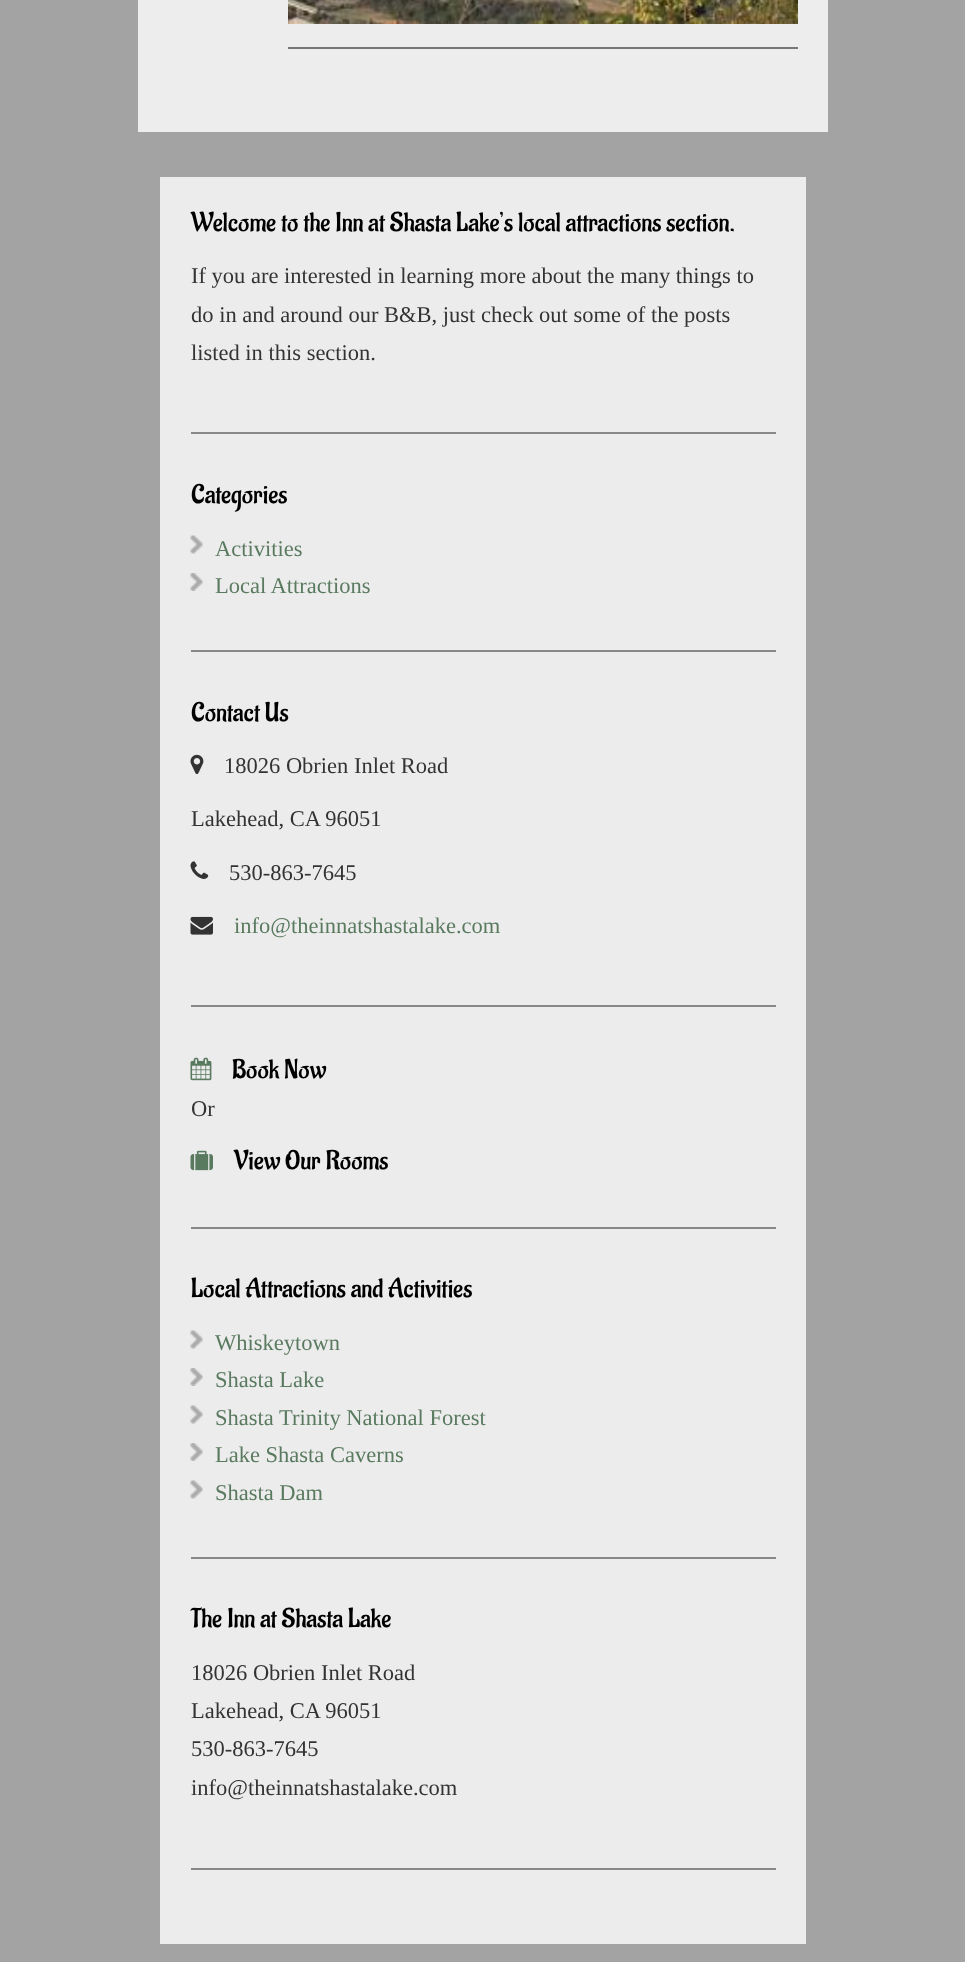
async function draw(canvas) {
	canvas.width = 965;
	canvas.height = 1962;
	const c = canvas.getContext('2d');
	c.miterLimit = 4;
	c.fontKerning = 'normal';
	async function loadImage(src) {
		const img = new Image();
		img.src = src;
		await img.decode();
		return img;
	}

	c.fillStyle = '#a3a3a3';
	c.fillRect(0, 0, 965, 1962);
	c.fillStyle = '#ededed';
	c.fillRect(138, 0, 690, 132);
	c.drawImage(await loadImage('img1.png'), 288, 0, 510, 24);
	for (const [x, y, w, h, color] of [
		[288, 47, 510, 2, '#777'],
		[160, 177, 646, 1767, '#ececec'],
		[191, 432, 585, 2, '#888'],
	]) {
		c.fillStyle = color;
		c.fillRect(x, y, w, h);
	}
	c.font = '27px Aladin';
	c.fillStyle = '#000';
	c.fillText('Welcome to the Inn at Shasta Lake’s local attractions section.', 191, 231);
	c.font = '22.5px Liberation Serif';
	c.fillStyle = '#333';
	for (const [text, x, y] of [
		['If you are interested in learning more about the many things to', 191, 283],
		['do in and around our B&B, just check out some of the posts', 191, 322],
		['listed in this section.', 191, 360],
	]) {
		c.fillText(text, x, y);
	}
	c.fillStyle = '#888';
	c.fillRect(191, 650, 585, 2);
	c.font = '27px Aladin';
	c.fillStyle = '#000';
	c.fillText('Categories', 191, 503);
	c.drawImage(await loadImage('img2.png'), 190, 535, 13, 19);
	c.font = '22.5px Liberation Serif';
	c.fillStyle = '#5a7a60';
	c.fillText('Activities', 215, 556);
	c.drawImage(await loadImage('img3.png'), 190, 573, 13, 18);
	c.fillText('Local Attractions', 215, 593);
	c.fillStyle = '#888';
	c.fillRect(191, 1005, 585, 2);
	c.font = '27px Aladin';
	c.fillStyle = '#000';
	c.fillText('Contact Us', 191, 721);
	c.drawImage(await loadImage('img4.png'), 190, 754, 14, 21);
	c.font = '22.5px Liberation Serif';
	c.fillStyle = '#333';
	c.fillText('18026 Obrien Inlet Road', 224, 773);
	c.fillText('Lakehead, CA 96051', 191, 826);
	c.drawImage(await loadImage('img5.png'), 190, 861, 19, 18);
	c.fillText('530-863-7645', 229, 880);
	c.drawImage(await loadImage('img6.png'), 190, 916, 23, 19);
	c.fillStyle = '#5a7a60';
	c.fillText('info@theinnatshastalake.com', 234, 933);
	c.fillStyle = '#888';
	c.fillRect(191, 1227, 585, 2);
	c.drawImage(await loadImage('img7.png'), 190, 1057, 22, 24);
	c.font = '27px Aladin';
	c.fillStyle = '#000';
	c.fillText('Book Now', 232, 1078);
	c.font = '22.5px Liberation Serif';
	c.fillStyle = '#333';
	c.fillText('Or', 191, 1116);
	c.drawImage(await loadImage('img8.png'), 190, 1150, 23, 21);
	c.font = '27px Aladin';
	c.fillStyle = '#000';
	c.fillText('View Our Rooms', 234, 1169);
	c.fillStyle = '#888';
	c.fillRect(191, 1557, 585, 2);
	c.fillStyle = '#000';
	c.fillText('Local Attractions and Activities', 191, 1297);
	c.drawImage(await loadImage('img2.png'), 190, 1330, 13, 19);
	c.font = '22.5px Liberation Serif';
	c.fillStyle = '#5a7a60';
	c.fillText('Whiskeytown', 215, 1350);
	c.drawImage(await loadImage('img3.png'), 190, 1368, 13, 18);
	c.fillText('Shasta Lake', 215, 1387);
	c.drawImage(await loadImage('img2.png'), 190, 1405, 13, 19);
	c.fillText('Shasta Trinity National Forest', 215, 1425);
	c.drawImage(await loadImage('img3.png'), 190, 1443, 13, 18);
	c.fillText('Lake Shasta Caverns', 215, 1462);
	c.drawImage(await loadImage('img2.png'), 190, 1480, 13, 19);
	c.fillText('Shasta Dam', 215, 1500);
	c.fillStyle = '#888';
	c.fillRect(191, 1868, 585, 2);
	c.font = '27px Aladin';
	c.fillStyle = '#000';
	c.fillText('The Inn at Shasta Lake', 191, 1627);
	c.font = '22.5px Liberation Serif';
	c.fillStyle = '#333';
	for (const [text, x, y] of [
		['18026 Obrien Inlet Road', 191, 1680],
		['Lakehead, CA 96051', 191, 1718],
		['530-863-7645', 191, 1756],
		['info@theinnatshastalake.com', 191, 1795],
	]) {
		c.fillText(text, x, y);
	}
}

draw(document.querySelector('canvas'));
